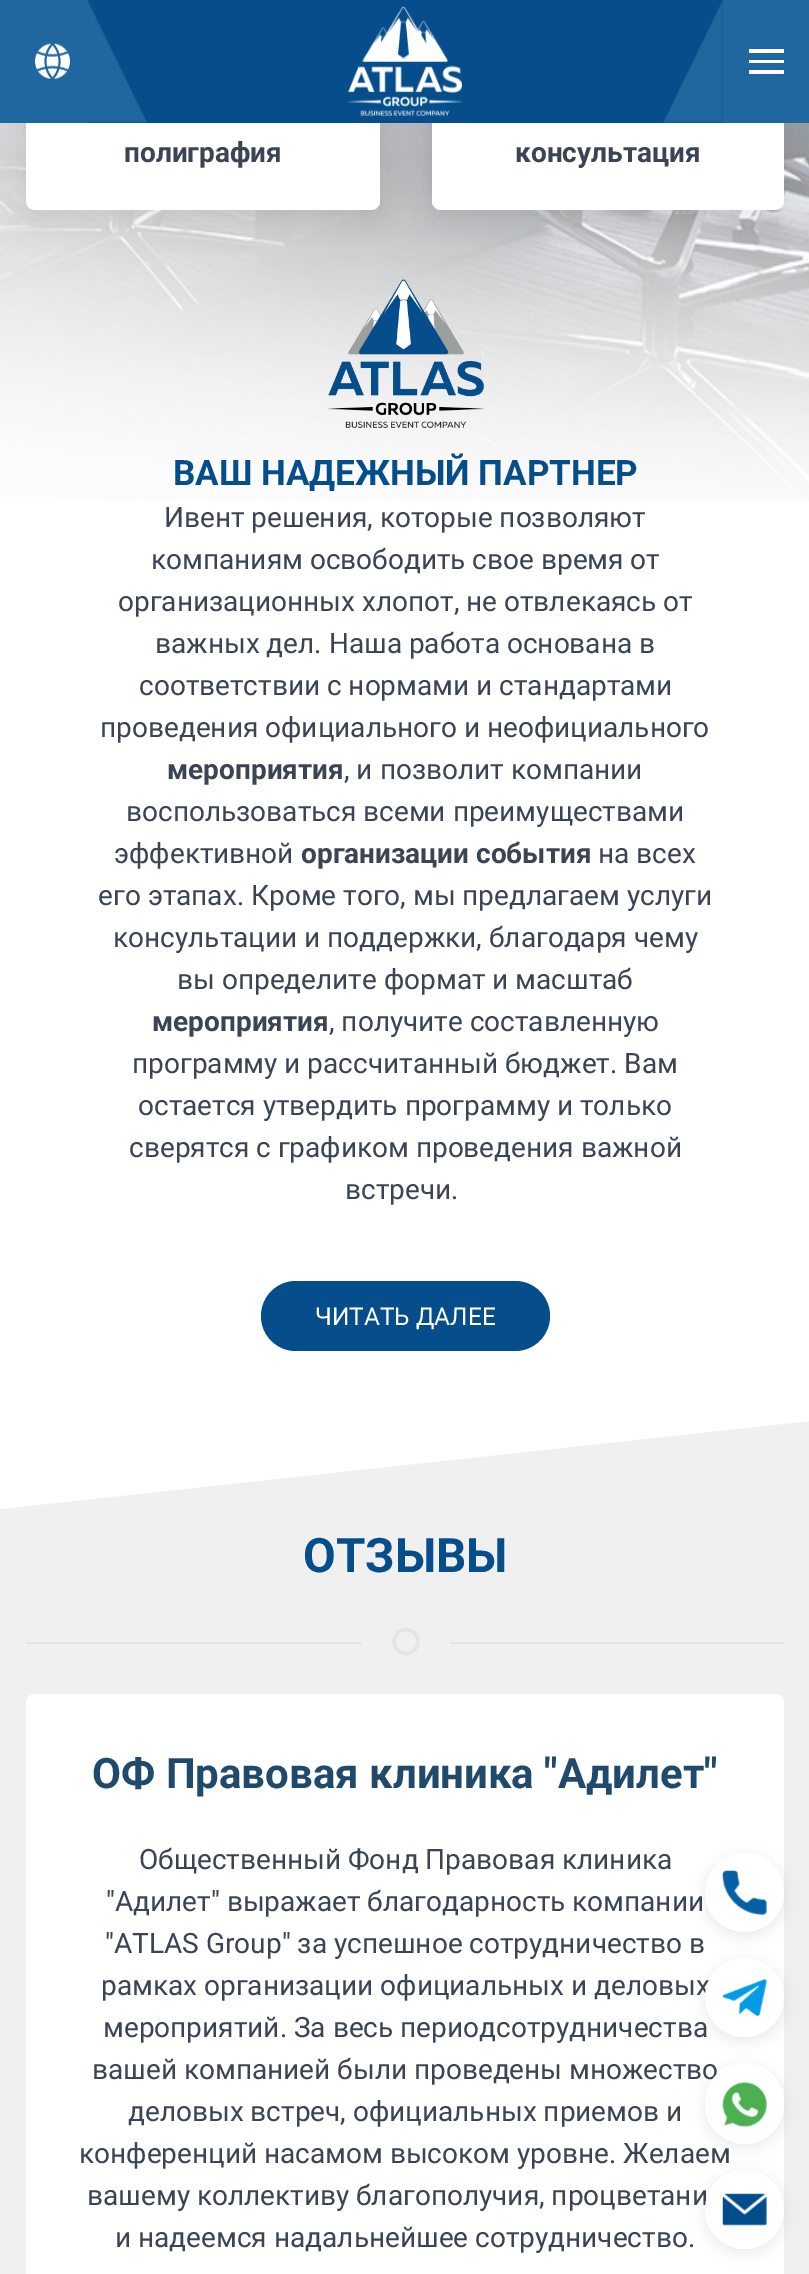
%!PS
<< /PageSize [809 2274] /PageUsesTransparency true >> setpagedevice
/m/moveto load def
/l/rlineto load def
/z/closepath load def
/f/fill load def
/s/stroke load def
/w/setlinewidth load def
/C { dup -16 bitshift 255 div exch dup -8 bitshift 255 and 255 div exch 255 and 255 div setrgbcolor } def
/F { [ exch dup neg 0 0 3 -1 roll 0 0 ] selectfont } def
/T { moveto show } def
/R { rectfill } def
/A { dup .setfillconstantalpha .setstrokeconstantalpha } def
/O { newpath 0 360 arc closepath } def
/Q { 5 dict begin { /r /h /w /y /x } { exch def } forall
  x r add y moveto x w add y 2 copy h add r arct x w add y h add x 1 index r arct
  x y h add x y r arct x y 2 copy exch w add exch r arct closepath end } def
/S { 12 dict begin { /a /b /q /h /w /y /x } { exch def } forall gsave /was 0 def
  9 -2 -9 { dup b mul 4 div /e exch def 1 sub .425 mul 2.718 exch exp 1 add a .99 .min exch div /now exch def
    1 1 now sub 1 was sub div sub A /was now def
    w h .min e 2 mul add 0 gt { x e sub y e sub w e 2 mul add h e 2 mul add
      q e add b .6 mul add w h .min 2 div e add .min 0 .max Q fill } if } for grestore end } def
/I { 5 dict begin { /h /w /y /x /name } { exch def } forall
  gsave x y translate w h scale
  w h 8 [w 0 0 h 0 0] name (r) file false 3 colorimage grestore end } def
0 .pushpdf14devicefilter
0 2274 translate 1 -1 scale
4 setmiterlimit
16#FFFFFF C
0 0 809 2274 R
(5.rgb) 0 123 809 378 I
16#000000 C
26 -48 354 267 9 13 .08 S
16#FFFFFF C
26 -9 354 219 9 Q f
16#000000 C
432 -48 352 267 9 13 .08 S
16#FFFFFF C
432 -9 352 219 9 Q f
16#054E8B C
88 0 635 123 R
16#20669F C
0 0 88 123 R
(1.rgb) 35 43 35 36 I
(2.rgb) 88 1 59 122 I
(3.rgb) 348 6 114 110 I
(4.rgb) 663 0 60 123 I
723 0 86 123 R
16#FFFFFF C
749 49 35 4 R
749 60 35 3 R
749 70 35 4 R
/Roboto-Bold 28 F
16#3A4455 C
(полиграфия) 124 162 T
(консультация) 515 162 T
(6.rgb) 328 279 156 149 I
/Roboto-Bold 35 F
16#054E8B C
(ВАШ НАДЕЖНЫЙ ПАРТНЕР) 173 485 T
/Roboto-Regular 28 F
16#3A4455 C
(Ивент решения, которые позволяют) 164 527 T
(компаниям освободить свое время от) 151 569 T
(организационных хлопот, не отвлекаясь от) 118 611 T
(важных дел. Наша работа основана в) 155 653 T
(соответствии с нормами и стандартами) 139 695 T
(проведения официального и неофициального) 100 737 T
/Roboto-Bold 28 F
(мероприятия) 167 779 T
/Roboto-Regular 28 F
(, и позволит компании) 344 779 T
(воспользоваться всеми преимуществами) 126 821 T
(эффективной) 114 863 T
/Roboto-Bold 28 F
(организации события) 301 863 T
/Roboto-Regular 28 F
(на всех) 598 863 T
(его этапах. Кроме того, мы предлагаем услуги) 98 905 T
(консультации и поддержки, благодаря чему) 113 947 T
(вы определите формат и масштаб) 177 989 T
/Roboto-Bold 28 F
(мероприятия) 152 1031 T
/Roboto-Regular 28 F
(, получите составленную) 329 1031 T
(программу и рассчитанный бюджет. Вам) 132 1073 T
(остается утвердить программу и только) 138 1115 T
(сверятся с графиком проведения важной) 129 1157 T
(встречи.) 345 1199 T
16#054E8B C
261 1281 289 70 35 Q f
/Roboto-Regular 24.5 F
16#FFFFFF C
(ЧИТАТЬ ДАЛЕЕ) 315 1325 T
16#F0F0F0 C
0 1421 809 853 R
16#FFFFFF C
0 1421 m 0 88 l 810 -88 l z f
/Roboto-Bold 47.5 F
16#054E8B C
(ОТЗЫВЫ) 303 1572 T
16#E5E5E5 C
3.5 w
406 1641.5 12 O s
26 1642 336 2 R
450 1642 334 2 R
16#FFFFFF C
26 1694 758 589 9 Q f
/Roboto-Bold 42 F
16#204A6C C
(ОФ Правовая клиника "Адилет") 92 1788 T
/Roboto-Regular 28 F
16#3A4455 C
(Общественный Фонд Правовая клиника) 139 1869 T
("Адилет" выражает благодарность компании) 106 1911 T
("ATLAS Group" за успешное сотрудничество в) 105 1953 T
(рамках организации официальных и деловых) 101 1995 T
(мероприятий. За весь периодсотрудничества) 103 2037 T
(вашей компанией были проведены множество) 92 2079 T
(деловых встреч, официальных приемов и) 128 2121 T
(конференций насамом высоком уровне. Желаем) 79 2163 T
(вашему коллективу благополучия, процветани) 87 2205 T
(и надеемся надальнейшее сотрудничество.) 115 2247 T
16#000000 C
705 1857 79 79 39.5 7 .08 S
16#FFFFFF C
744.5 1892.5 39.5 O f
(7.rgb) 722 1870 45 45 I
16#000000 C
705 1962 79 79 39.5 7 .08 S
16#FFFFFF C
744.5 1997.5 39.5 O f
(8.rgb) 722 1978 45 39 I
16#000000 C
705 2067 79 80 39.5 7 .08 S
16#FFFFFF C
705 2063 79 81 39.5 Q f
(9.rgb) 722 2081 45 46 I
16#000000 C
705 2174 79 78 39 7 .08 S
16#FFFFFF C
744.5 2209.5 39.5 O f
(10.rgb) 722 2193 45 33 I
.poppdf14devicefilter showpage
